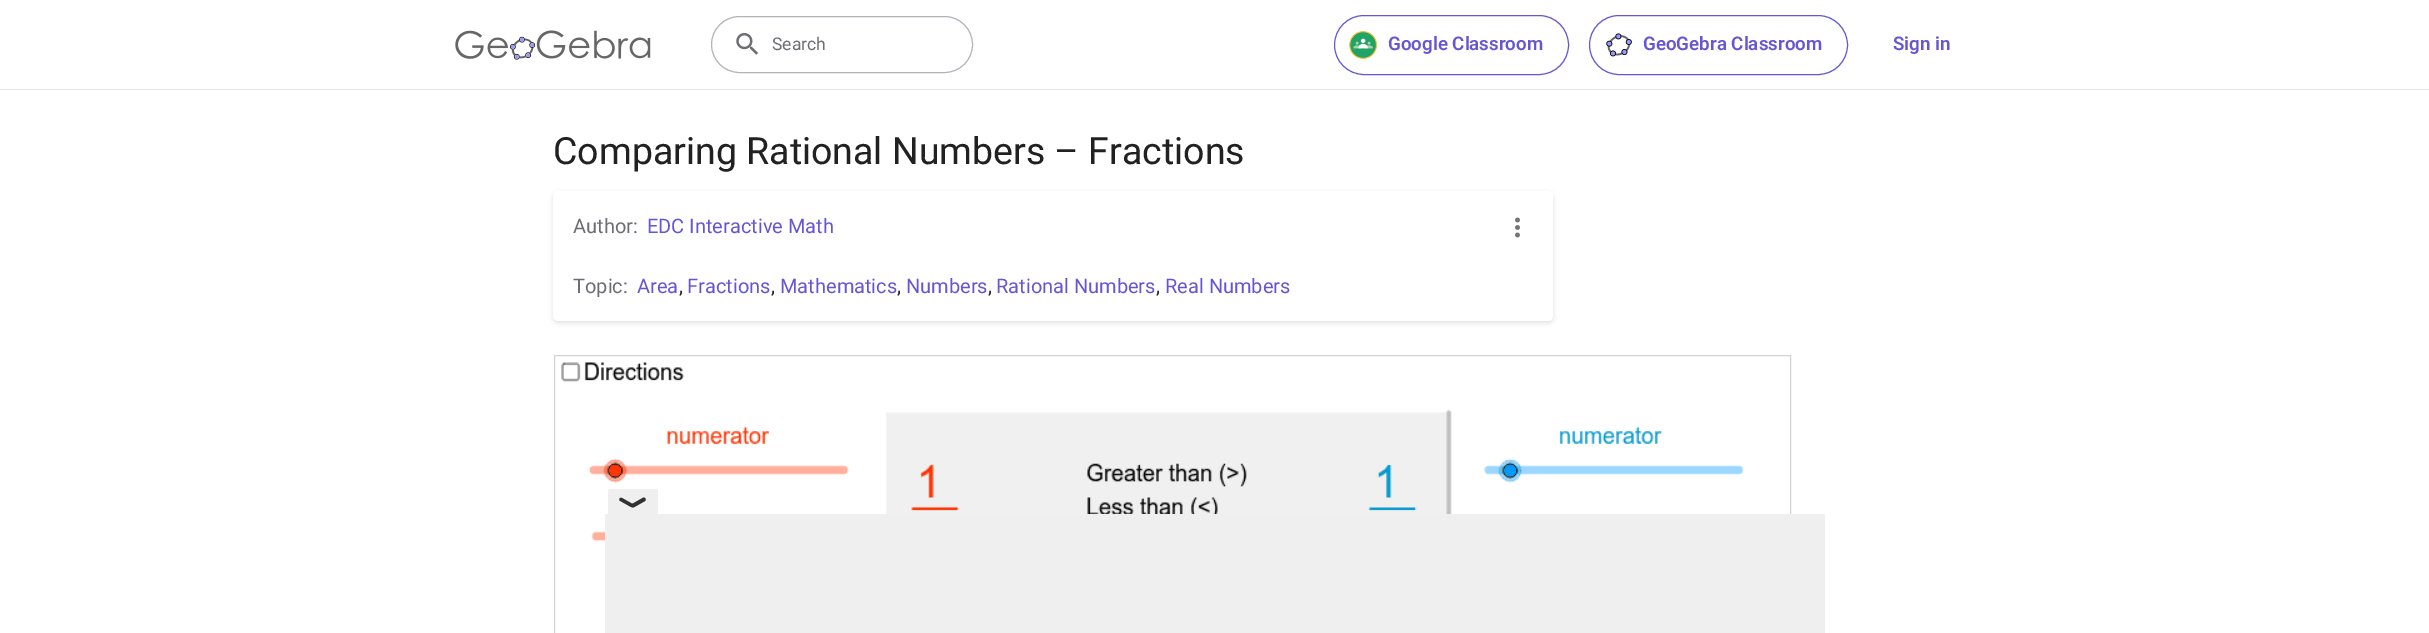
%!PS
<< /PageSize [2429 633] /PageUsesTransparency true >> setpagedevice
/m/moveto load def
/l/rlineto load def
/c/rcurveto load def
/z/closepath load def
/f/fill load def
/s/stroke load def
/C { dup -16 bitshift 255 div exch dup -8 bitshift 255 and 255 div exch 255 and 255 div setrgbcolor } def
/F { [ exch dup neg 0 0 3 -1 roll 0 0 ] selectfont } def
/T { moveto show } def
/R { rectfill } def
/A { dup .setfillconstantalpha .setstrokeconstantalpha } def
/Q { 5 dict begin { /r /h /w /y /x } { exch def } forall
  x r add y moveto x w add y 2 copy h add r arct x w add y h add x 1 index r arct
  x y h add x y r arct x y 2 copy exch w add exch r arct closepath end } def
/S { 12 dict begin { /a /b /q /h /w /y /x } { exch def } forall gsave /was 0 def
  9 -2 -9 { dup b mul 4 div /e exch def 1 sub .425 mul 2.718 exch exp 1 add a .99 .min exch div /now exch def
    1 1 now sub 1 was sub div sub A /was now def
    w h .min e 2 mul add 0 gt { x e sub y e sub w e 2 mul add h e 2 mul add
      q e add b .6 mul add w h .min 2 div e add .min 0 .max Q fill } if } for grestore end } def
/I { 5 dict begin { /h /w /y /x /name } { exch def } forall
  gsave x y translate w h scale
  w h 8 [w 0 0 h 0 0] name (r) file false 3 colorimage grestore end } def
0 .pushpdf14devicefilter
0 633 translate 1 -1 scale
4 setmiterlimit
16#FFFFFF C
0 0 2429 633 R
16#E6E6EB C
0 89 2429 1 R
(1.rgb) 455 30 196 30 I
16#B4B3BA C
711.5 16.5 261 56 28 Q s
(2.rgb) 736 33 22 22 I
/Roboto-Regular 17.5 F
16#6E6D73 C
(Search) 772 50 T
16#6557D2 C
1334.5 15.5 234 59 29.5 Q s
(3.rgb) 1349 31 28 28 I
/Roboto-SemiBold 18.75 F
(Google Classroom) 1388 50 T
1589.5 15.5 258 59 29.5 Q s
(4.rgb) 1606 33 26 24 I
(GeoGebra Classroom) 1643 50 T
(Sign in) 1893 50 T
/Roboto-Regular 37.5 F
16#212121 C
(Comparing Rational Numbers – Fractions) 553 164 T
16#1C1C1F C
553 193 1000 130 5 2.5 .14 S
16#FFFFFF C
553 191 1000 130 5 Q f
/Roboto-Regular 20 F
16#6E6D73 C
(Author:) 573 233 T
16#6557D2 C
(EDC Interactive Math) 647 233 T
16#6E6D73 C
(Topic:) 573 293 T
16#6557D2 C
(Area) 637 293 T
16#212121 C
(,) 679 293 T
16#6557D2 C
(Fractions) 687 293 T
16#212121 C
(,) 771 293 T
16#6557D2 C
(Mathematics) 780 293 T
16#212121 C
(,) 897 293 T
16#6557D2 C
(Numbers) 906 293 T
16#212121 C
(,) 988 293 T
16#6557D2 C
(Rational Numbers) 996 293 T
16#212121 C
(,) 1156 293 T
16#6557D2 C
(Real Numbers) 1165 293 T
(5.rgb) 1515 217 5 21 I
(6.rgb) 561 362 1183 266 I
16#D3D3D3 C
554.5 355.5 1236 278 rectstroke
16#EFEFEF C
610.5 489 m 45 0 l 1.5 0 2.5 1 2.5 2.5 c 0 22.5 l -50 0 l 0 -22.5 l 0 -1.5 1 -2.5 2.5 -2.5 c z f
16#313131 C
622 498 m 11.5 6.5 l 1 1.5 -1 3.5 -2.5 2.5 c -11.5 -6.5 l -1 -1.5 1 -3.5 2.5 -2.5 c z f
632 504 m 11.5 -6.5 l 2 0 3 2.5 1.5 3.5 c -11.5 6.5 l -2 0 -3 -2.5 -1.5 -3.5 c z f
16#EFEFEF C
605 514 1220 119 R
.poppdf14devicefilter showpage
